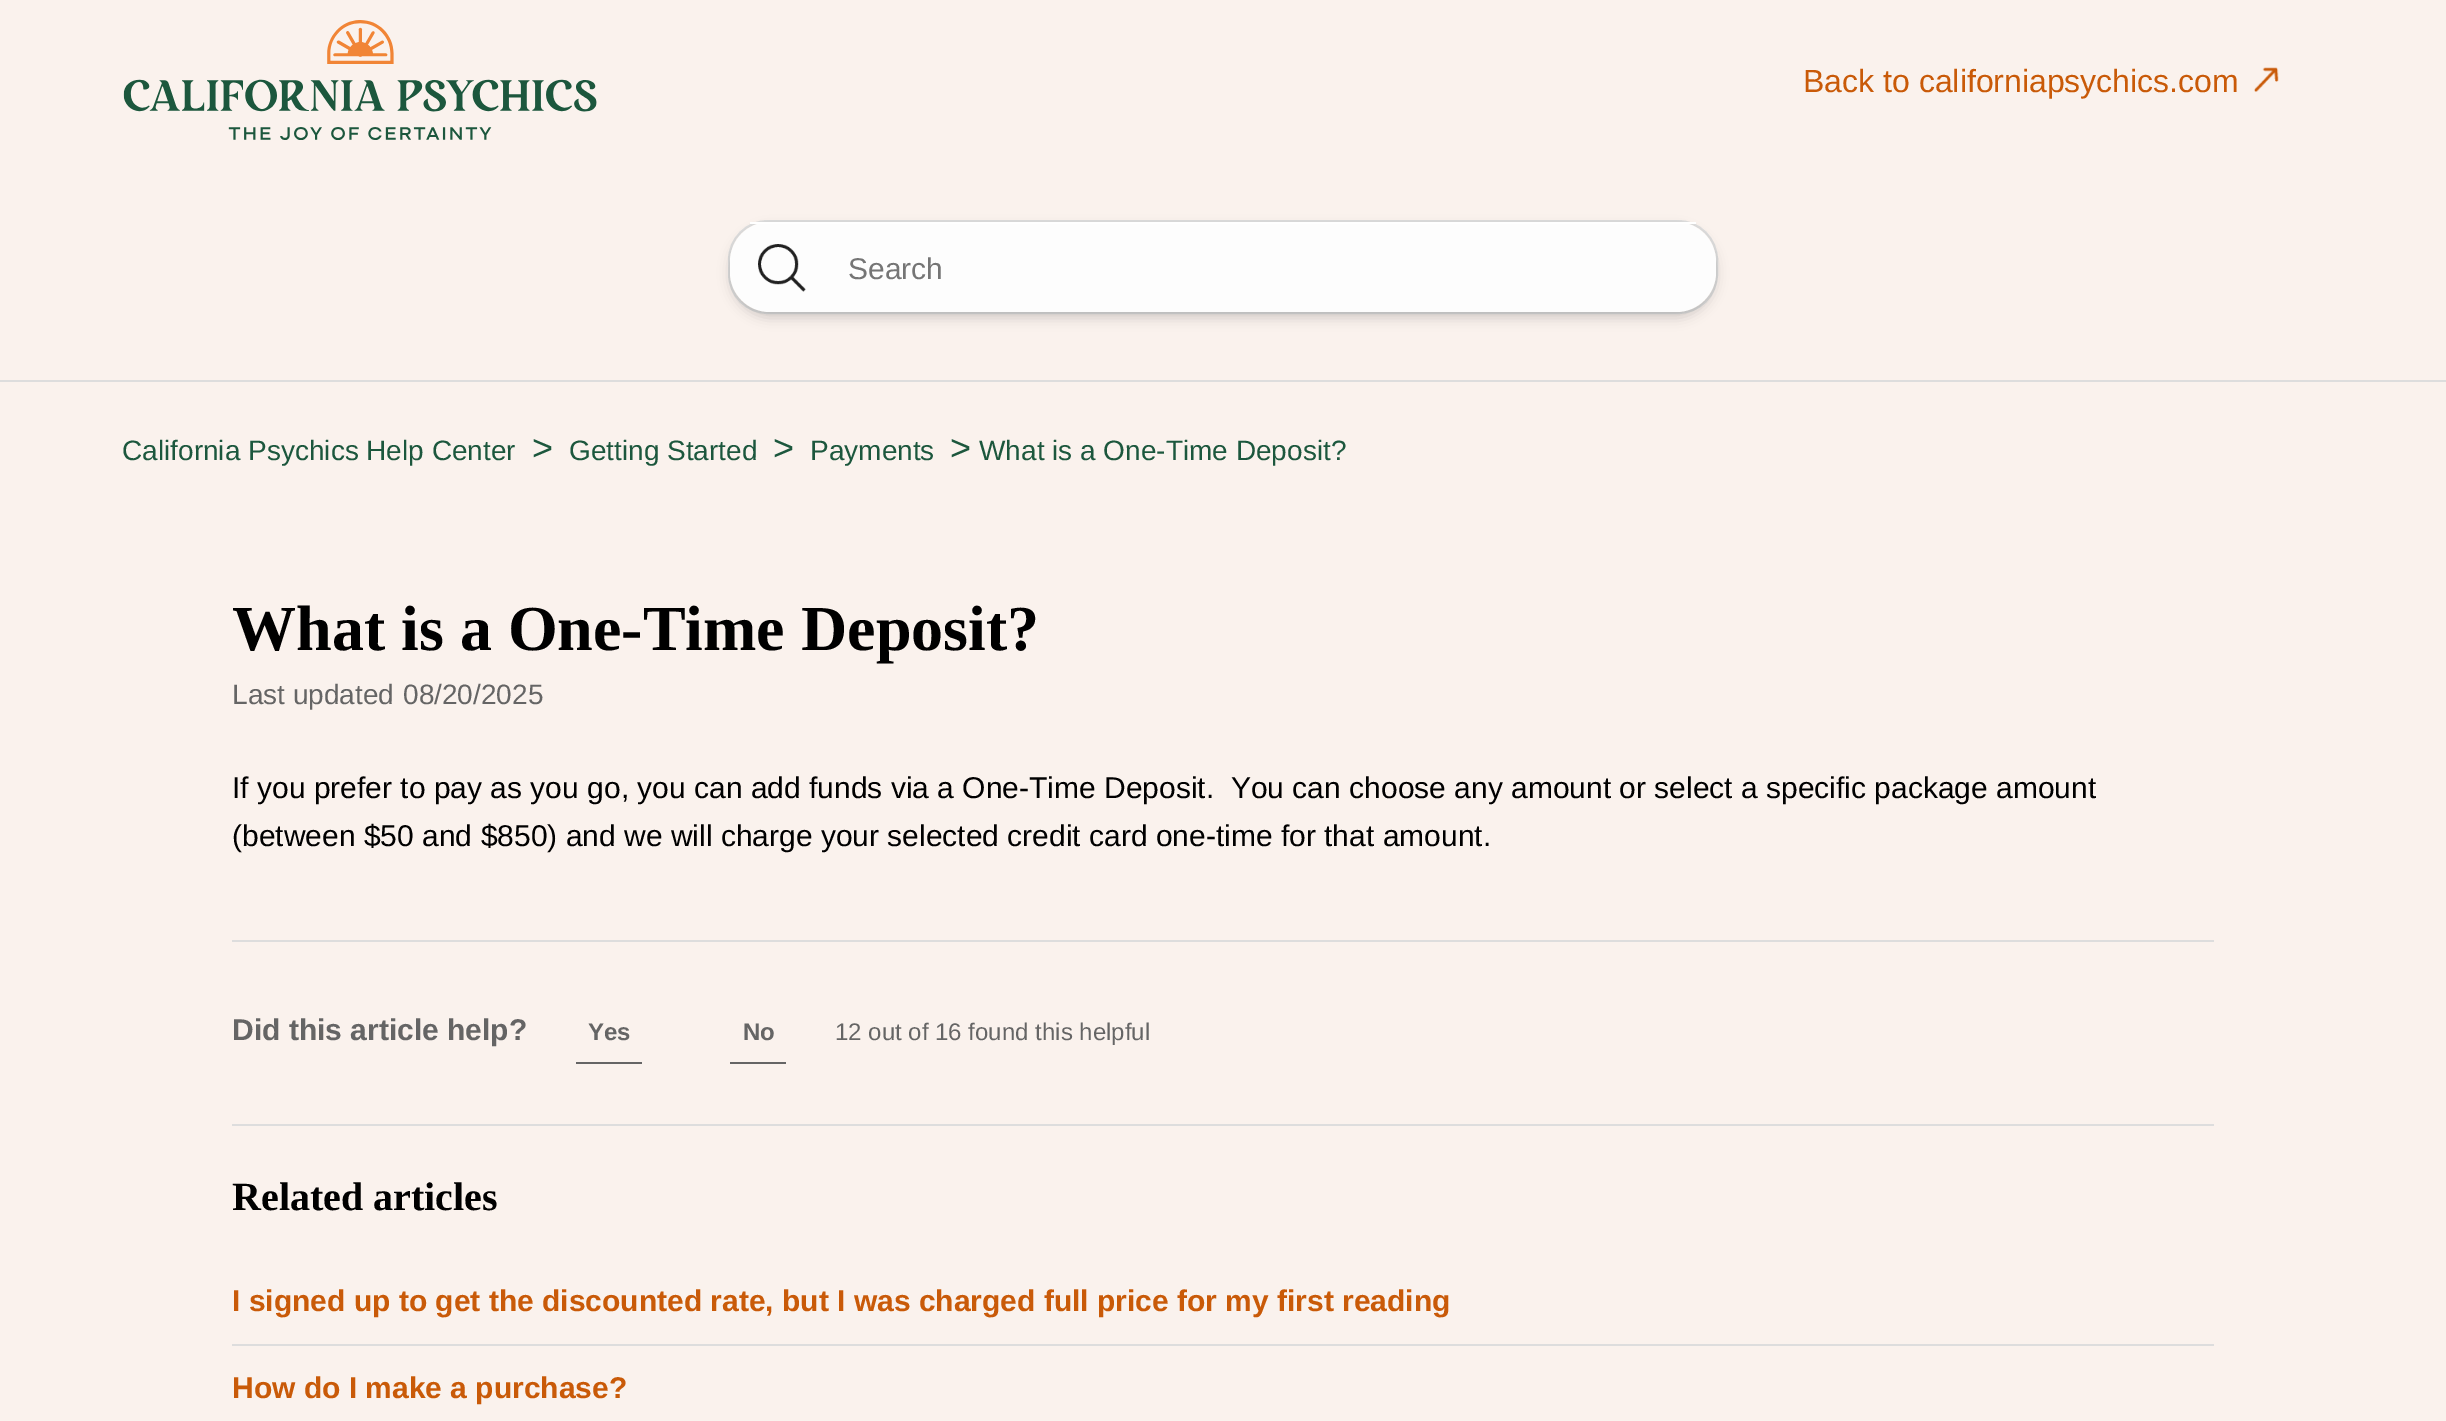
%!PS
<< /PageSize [2446 1421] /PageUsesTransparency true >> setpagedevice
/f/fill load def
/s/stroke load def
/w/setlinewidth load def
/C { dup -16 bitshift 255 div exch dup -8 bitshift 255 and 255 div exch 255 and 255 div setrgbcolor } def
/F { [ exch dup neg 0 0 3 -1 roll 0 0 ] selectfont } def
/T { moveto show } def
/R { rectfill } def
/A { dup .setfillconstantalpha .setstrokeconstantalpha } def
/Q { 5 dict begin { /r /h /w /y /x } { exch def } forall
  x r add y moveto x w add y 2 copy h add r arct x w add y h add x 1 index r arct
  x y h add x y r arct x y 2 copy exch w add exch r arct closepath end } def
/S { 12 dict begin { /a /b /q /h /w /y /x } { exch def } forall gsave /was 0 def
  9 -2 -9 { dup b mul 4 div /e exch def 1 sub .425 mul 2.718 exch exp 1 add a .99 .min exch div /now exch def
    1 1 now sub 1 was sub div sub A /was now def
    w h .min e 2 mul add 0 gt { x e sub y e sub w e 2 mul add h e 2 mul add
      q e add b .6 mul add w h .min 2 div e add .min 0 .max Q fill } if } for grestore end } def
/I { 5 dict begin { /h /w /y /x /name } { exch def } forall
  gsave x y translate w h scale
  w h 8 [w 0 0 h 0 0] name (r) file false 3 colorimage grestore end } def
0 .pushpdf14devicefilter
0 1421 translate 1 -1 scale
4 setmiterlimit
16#FAF2ED C
0 0 2446 1421 R
(1.rgb) 123 20 474 120 I
/LiberationSans-Regular 32 F
16#C95A08 C
(Back to californiapsychics.com) 1803 92 T
(2.rgb) 2254 67 25 25 I
16#DDDDDD C
2 w
729 221 988 92 39 Q s
16#000000 C
730 228 986 90 40 6 .16 S
16#FDFDFD C
730 222 986 90 40 Q f
(3.rgb) 758 244 48 48 I
16#FFFFFF C
750 222 946 2 R
/LiberationSans-Regular 30 F
16#757575 C
(Search) 848 279 T
16#DDDDDD C
0 380 2446 2 R
/LiberationSans-Regular 28 F
16#1C573D C
(California Psychics Help Center) 122 460 T
/LiberationSans-Regular 36 F
(>) 532 460 T
/LiberationSans-Regular 28 F
(Getting Started) 569 460 T
/LiberationSans-Regular 36 F
(>) 773 460 T
/LiberationSans-Regular 28 F
(Payments) 810 460 T
/LiberationSans-Regular 36 F
(>) 950 460 T
/LiberationSans-Regular 28 F
(What is a One-Time Deposit?) 979 460 T
/LiberationSerif-Bold 64 F
16#000000 C
(What is a One-Time Deposit?) 232 650 T
/LiberationSans-Regular 28 F
16#656565 C
(Last updated) 232 704 T
(08/20/2025) 403 704 T
/LiberationSans-Regular 30 F
16#000000 C
(If you prefer to pay as you go, you can add funds via a One-Time Deposit.  You can choose any amount or select a specific package amount) 232 798 T
(\(between $50 and $850\) and we will charge your selected credit card one-time for that amount.) 232 846 T
16#DDDDDD C
232 940 1982 2 R
/LiberationSans-Bold 30 F
16#656565 C
(Did this article help?) 232 1040 T
576 1062 66 2 R
/LiberationSans-Bold 24 F
(Yes) 588 1040 T
730 1062 56 2 R
(No) 743 1040 T
/LiberationSans-Regular 24 F
(12 out of 16 found this helpful) 835 1040 T
16#DDDDDD C
232 1124 1982 2 R
/LiberationSerif-Bold 40 F
16#000000 C
(Related articles) 232 1210 T
16#DDDDDD C
232 1344 1982 2 R
/LiberationSans-Bold 30 F
16#C95A08 C
(I signed up to get the discounted rate, but I was charged full price for my first reading) 232 1311 T
(How do I make a purchase?) 232 1398 T
.poppdf14devicefilter showpage
